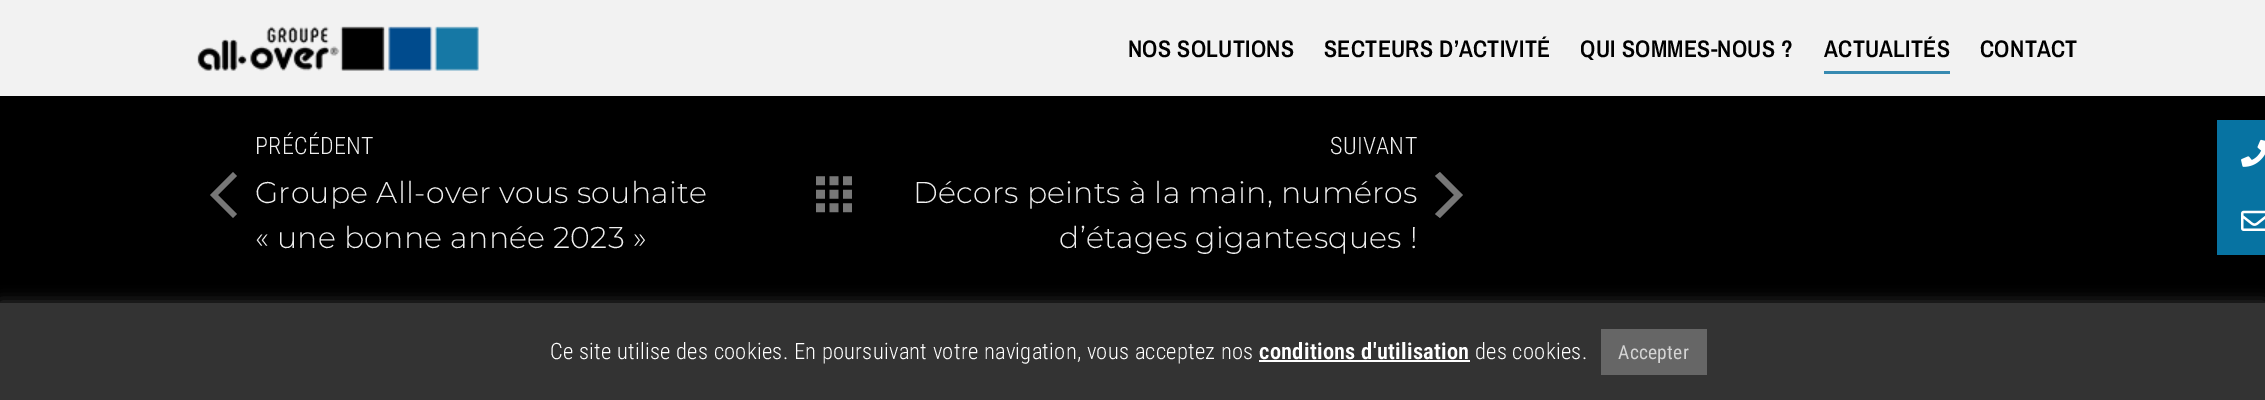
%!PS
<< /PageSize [2265 400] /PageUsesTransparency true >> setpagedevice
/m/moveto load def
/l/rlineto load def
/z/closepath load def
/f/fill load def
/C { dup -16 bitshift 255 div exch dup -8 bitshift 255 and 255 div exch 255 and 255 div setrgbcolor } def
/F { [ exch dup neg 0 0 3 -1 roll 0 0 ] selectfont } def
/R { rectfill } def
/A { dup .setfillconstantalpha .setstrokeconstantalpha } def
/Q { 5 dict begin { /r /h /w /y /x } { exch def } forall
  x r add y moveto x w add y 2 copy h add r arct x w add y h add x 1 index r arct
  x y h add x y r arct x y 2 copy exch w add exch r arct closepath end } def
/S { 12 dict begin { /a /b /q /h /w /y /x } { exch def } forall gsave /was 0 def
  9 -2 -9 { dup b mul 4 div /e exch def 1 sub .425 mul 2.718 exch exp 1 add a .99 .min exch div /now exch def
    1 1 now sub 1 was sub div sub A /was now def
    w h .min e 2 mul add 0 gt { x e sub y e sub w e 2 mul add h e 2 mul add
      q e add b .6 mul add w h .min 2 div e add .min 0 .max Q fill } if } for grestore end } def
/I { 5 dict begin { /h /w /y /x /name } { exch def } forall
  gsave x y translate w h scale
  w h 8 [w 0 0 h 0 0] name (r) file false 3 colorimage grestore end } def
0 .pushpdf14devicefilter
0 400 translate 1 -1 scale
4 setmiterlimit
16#000000 C
0 0 2265 400 R
16#F2F2F2 C
0 0 2265 96 R
(1.rgb) 197 26 282 45 I
/ArchivoNarrow-SemiBold 24 F
16#000000 C
1128 57 m .27 0 (NOS SOLUTIONS) ashow
1324 57 m .27 0 (SECTEURS D’ACTIVITÉ) ashow
1580 57 m .27 0 (QUI SOMMES-NOUS ?) ashow
1824 57 m .27 0 (ACTUALITÉS) ashow
16#378AB1 C
1824 71 126 3 R
16#000000 C
1980 57 m .27 0 (CONTACT) ashow
/RobotoCondensed-Light 24 F
16#EEEEEE C
255 154 m .27 0 (PRÉCÉDENT) ashow
16#777777 C
218 195 m 19 -19 l -4 -4 l -23 23 l 23 23 l 4 -4 l z f
/Montserrat-Light 30 F
16#EEEEEE C
255 203 m .27 0 (Groupe All-over vous souhaite) ashow
255 248 m .27 0 (« une bonne année 2023 ») ashow
(2.rgb) 816 176 36 37 I
/RobotoCondensed-Light 24 F
1330 154 m .27 0 (SUIVANT) ashow
/Montserrat-Light 30 F
913 203 m .27 0 (Décors peints à la main, numéros) ashow
1059 248 m .27 0 (d’étages gigantesques !) ashow
16#777777 C
1454 195 m -19 -19 l 5 -4 l 23 23 l -23 23 l -5 -4 l z f
16#0773A2 C
2217 120 48 135 R
(3.rgb) 2241 139 24 28 I
(4.rgb) 2241 210 24 21 I
16#ACABAB C
0 302 2265 97 0 7.5 .3 S
16#333333 C
0 303 2265 97 R
/RobotoCondensed-Light 22.5 F
16#FFFFFF C
550 359 m .27 0 (Ce site utilise des cookies. En poursuivant votre navigation, vous acceptez nos) ashow
/RobotoCondensed-SemiBold 22.5 F
1259 359 m .27 0 (conditions d'utilisation) ashow
1259 360 211 2 R
/RobotoCondensed-Light 22.5 F
1475 359 m .27 0 (des cookies.) ashow
16#666666 C
1601 329 106 46 R
/RobotoCondensed-Regular 19.5 F
16#D4D4D4 C
1618 359 m .27 0 (Accepter) ashow
.poppdf14devicefilter showpage
